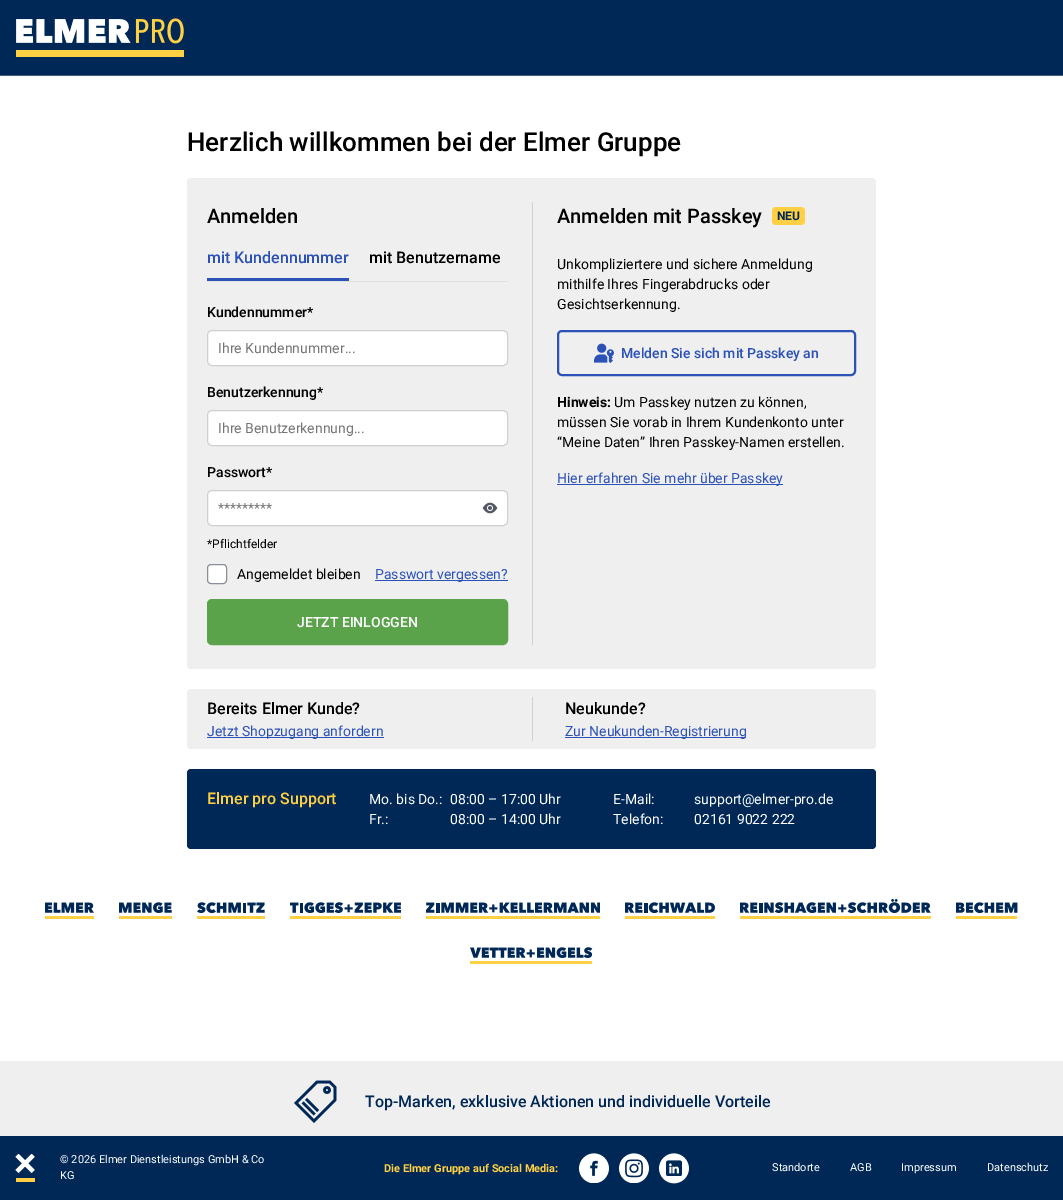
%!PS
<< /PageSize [1063 1200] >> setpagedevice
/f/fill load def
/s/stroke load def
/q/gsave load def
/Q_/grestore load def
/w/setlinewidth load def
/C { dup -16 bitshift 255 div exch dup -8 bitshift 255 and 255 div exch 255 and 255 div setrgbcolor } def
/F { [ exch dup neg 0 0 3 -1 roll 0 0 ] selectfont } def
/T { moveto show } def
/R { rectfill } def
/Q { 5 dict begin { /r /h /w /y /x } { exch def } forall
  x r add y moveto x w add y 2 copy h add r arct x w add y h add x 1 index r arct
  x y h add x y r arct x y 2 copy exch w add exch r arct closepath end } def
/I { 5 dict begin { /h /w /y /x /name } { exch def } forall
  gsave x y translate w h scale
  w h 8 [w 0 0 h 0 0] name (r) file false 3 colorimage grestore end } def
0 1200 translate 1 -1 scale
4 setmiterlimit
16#FFFFFF C
0 0 1063 1200 R
16#002856 C
0 0 1063 75 R
16#455E81 C
0 75 1063 1 R
(1.rgb) 16 18 168 39 I
/Roboto-Medium 26 F
16#000000 C
(Herzlich willkommen bei der Elmer Gruppe) 187 151 T
16#F0EFEF C
187 178 689 491 4 Q f
/Roboto-Medium 20 F
16#000000 C
(Anmelden) 207 223 T
16#DFE0E0 C
207 281 301 1 R
16#2C52B7 C
207 278 142 3 R
/Roboto-Medium 16 F
(mit Kundennummer) 207 263 T
16#000000 C
(mit Benutzername) 369 263 T
/Roboto-Medium 14 F
(Kundennummer*) 207 317 T
16#FFFFFF C
207.5 330.5 300 35 4.5 Q q f Q_
16#CED1D2 C
s
/Roboto-Regular 14 F
16#757575 C
(Ihre Kundennummer...) 218 353 T
/Roboto-Medium 14 F
16#000000 C
(Benutzerkennung*) 207 397 T
16#FFFFFF C
207.5 410.5 300 35 4.5 Q q f Q_
16#CED1D2 C
s
/Roboto-Regular 14 F
16#757575 C
(Ihre Benutzerkennung...) 218 433 T
/Roboto-Medium 14 F
16#000000 C
(Passwort*) 207 477 T
16#FFFFFF C
207.5 490.5 300 35 4.5 Q q f Q_
16#CED1D2 C
s
/Roboto-Regular 14 F
16#757575 C
(*********) 218 513 T
(2.rgb) 482 502 16 12 I
/Roboto-Regular 12 F
16#000000 C
(*Pflichtfelder) 207 548 T
16#FFFFFF C
207.5 564.5 19 19 3.5 Q q f Q_
16#8A8F97 C
s
/Roboto-Regular 14 F
16#000000 C
(Angemeldet bleiben) 237 579 T
16#2C52B7 C
375 580 133 1 R
(Passwort vergessen?) 375 579 T
16#5AA34A C
208 600 299 44 4 Q q f Q_
2 w
s
/Roboto-Medium 14 F
16#FFFFFF C
(JETZT EINLOGGEN) 297 627 T
16#CED1D2 C
532 202 1 443 R
/Roboto-Medium 20 F
16#000000 C
(Anmelden mit Passkey) 557 223 T
16#FFD044 C
772 207 33 18 4 Q f
/Roboto-Bold 12 F
16#002856 C
(NEU) 777 220 T
/Roboto-Regular 14 F
16#000000 C
(Unkompliziertere und sichere Anmeldung) 557 269 T
(mithilfe Ihres Fingerabdrucks oder) 557 289 T
(Gesichtserkennung.) 557 309 T
16#2C52B7 C
558 331 297 44 4 Q s
(3.rgb) 594 343 20 20 I
/Roboto-Medium 14 F
(Melden Sie sich mit Passkey an) 621 358 T
/Roboto-Bold 14 F
16#000000 C
(Hinweis:) 557 407 T
/Roboto-Regular 14 F
(Um Passkey nutzen zu können,) 614 407 T
(müssen Sie vorab in Ihrem Kundenkonto unter) 557 427 T
(“Meine Daten” Ihren Passkey-Namen erstellen.) 557 447 T
16#2C52B7 C
557 484 226 1 R
(Hier erfahren Sie mehr über Passkey) 557 483 T
16#F0EFEF C
187 689 689 60 4 Q f
/Roboto-Medium 16 F
16#000000 C
(Bereits Elmer Kunde?) 207 714 T
16#2C52B7 C
207 737 177 1 R
/Roboto-Regular 14 F
(Jetzt Shopzugang anfordern) 207 736 T
16#CED1D2 C
532 697 1 44 R
/Roboto-Medium 16 F
16#000000 C
(Neukunde?) 565 714 T
16#2C52B7 C
565 737 181 1 R
/Roboto-Regular 14 F
(Zur Neukunden-Registrierung) 565 736 T
16#002856 C
187 769 689 80 4 Q f
/Roboto-Medium 16 F
16#FFD044 C
(Elmer pro Support) 207 804 T
/Roboto-Regular 14 F
16#FFFFFF C
(Mo. bis Do.:) 369 804 T
(Fr.:) 369 824 T
(08:00 – 17:00 Uhr) 450 804 T
(08:00 – 14:00 Uhr) 450 824 T
(E-Mail:) 613 804 T
(Telefon:) 613 824 T
(support@elmer-pro.de) 694 804 T
(02161 9022 222) 694 824 T
(4.rgb) 45 902 49 17 I
(5.rgb) 119 902 53 17 I
(6.rgb) 197 902 68 17 I
(7.rgb) 290 902 111 17 I
(8.rgb) 426 902 174 17 I
(9.rgb) 625 902 90 17 I
(10.rgb) 740 899 191 20 I
(11.rgb) 956 902 62 17 I
(12.rgb) 470 947 123 17 I
16#002856 C
0 1136 1063 64 R
16#F0EFEF C
0 1061 1063 75 R
(13.rgb) 294 1080 43 43 I
/Roboto-Medium 16 F
16#002856 C
(Top-Marken, exklusive Aktionen und individuelle Vorteile) 365 1107 T
(14.rgb) 15 1154 20 28 I
/Roboto-Regular 11 F
16#FFFFFF C
(© 2026 Elmer Dienstleistungs GmbH & Co) 60 1163 T
(KG) 60 1179 T
/Roboto-Bold 11 F
16#FFD044 C
(Die Elmer Gruppe auf Social Media:) 384 1172 T
(15.rgb) 579 1153 30 30 I
(16.rgb) 619 1153 30 30 I
(17.rgb) 659 1153 30 31 I
/Roboto-Regular 11 F
16#FFFFFF C
(Standorte) 772 1171 T
(AGB) 850 1171 T
(Impressum) 901 1171 T
(Datenschutz) 987 1171 T
showpage
